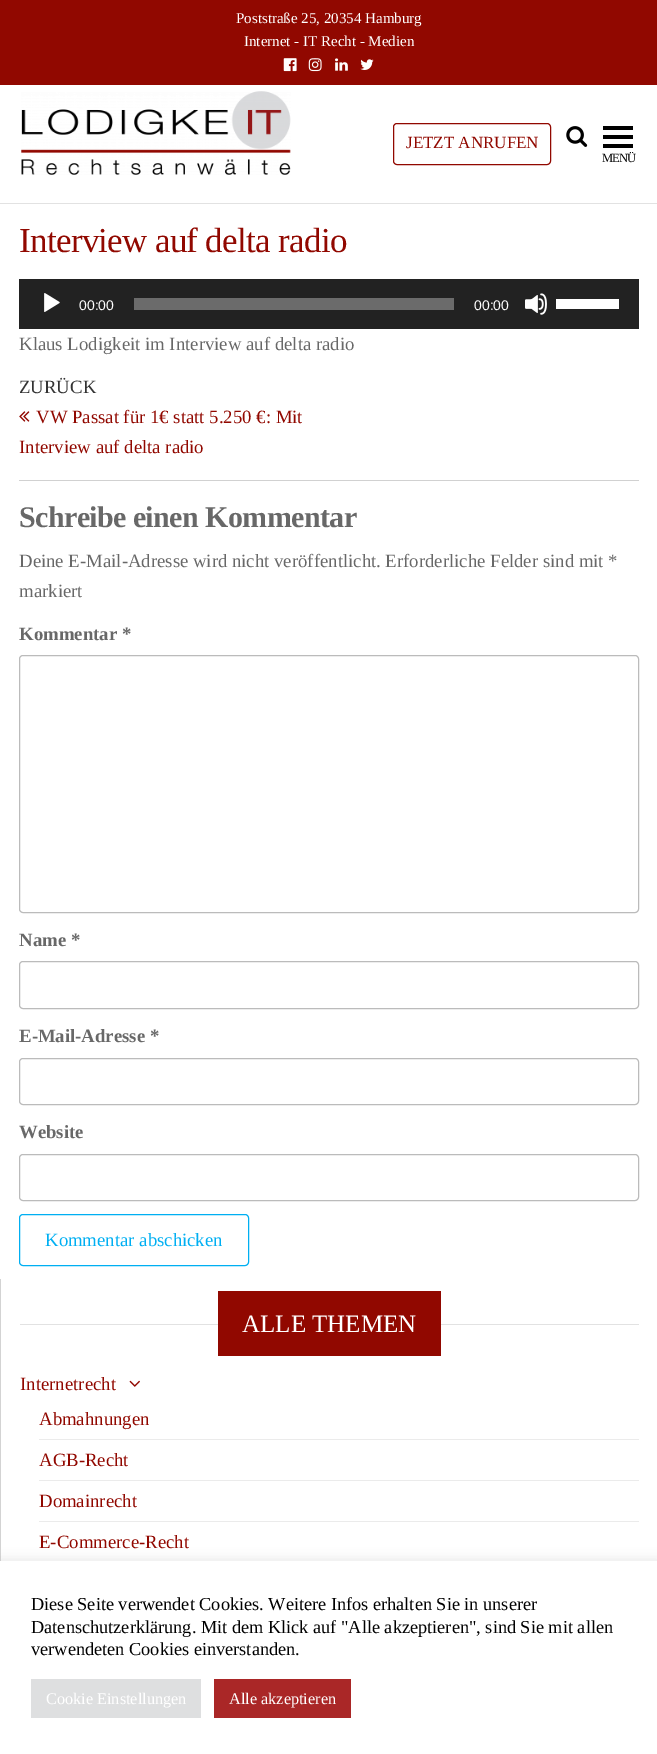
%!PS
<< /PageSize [657 1754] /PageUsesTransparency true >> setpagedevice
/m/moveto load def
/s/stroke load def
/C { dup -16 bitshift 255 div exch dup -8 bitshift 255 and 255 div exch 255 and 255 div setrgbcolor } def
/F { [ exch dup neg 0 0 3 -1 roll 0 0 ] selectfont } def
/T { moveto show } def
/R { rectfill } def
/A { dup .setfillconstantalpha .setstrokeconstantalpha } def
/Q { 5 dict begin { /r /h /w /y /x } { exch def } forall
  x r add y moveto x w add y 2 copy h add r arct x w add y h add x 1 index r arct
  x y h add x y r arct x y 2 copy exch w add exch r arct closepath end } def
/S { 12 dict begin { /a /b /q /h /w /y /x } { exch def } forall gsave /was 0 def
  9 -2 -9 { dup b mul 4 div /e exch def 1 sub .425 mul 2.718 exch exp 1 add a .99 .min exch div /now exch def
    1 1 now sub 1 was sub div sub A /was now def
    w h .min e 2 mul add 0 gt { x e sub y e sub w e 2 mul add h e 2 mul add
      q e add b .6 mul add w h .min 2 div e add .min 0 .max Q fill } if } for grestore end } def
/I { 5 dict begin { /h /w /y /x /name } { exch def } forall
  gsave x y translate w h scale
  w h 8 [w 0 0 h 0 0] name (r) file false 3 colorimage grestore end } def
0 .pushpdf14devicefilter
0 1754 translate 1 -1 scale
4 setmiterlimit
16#FFFFFF C
0 0 657 1754 R
16#910800 C
0 0 657 85 R
/LiberationSerif-Regular 15 F
16#FFFFFF C
(Poststraße 25, 20354 Hamburg) 236 23 T
(Internet - IT Recht - Medien) 244 46 T
(1.rgb) 283 58 14 14 I
(2.rgb) 308 58 14 14 I
(3.rgb) 335 58 13 13 I
(4.rgb) 360 59 14 11 I
16#E2E2E2 C
0 203 657 1 R
(5.rgb) 21 91 270 84 I
16#910800 C
393.5 123.5 157 41 3.5 Q s
/LiberationSerif-Regular 17 F
(JETZT ANRUFEN) 406 148 T
(6.rgb) 566 126 22 21 I
16#000000 C
603 126 30 4 R
603 135 30 4 R
603 144 30 4 R
/LiberationSerif-Regular 12.5 F
602 162 m -1 0 (MENÜ) ashow
/LiberationSerif-Regular 35 F
16#910800 C
19 252 m -.7 0 (Interview auf delta radio) ashow
16#222222 C
19 279 620 50 R
(7.rgb) 44 293 16 19 I
/LiberationSans-Regular 14 F
16#FFFFFF C
(00:00) 79 310 T
16#6B6B6B C
134 298 320 12 R
16#FFFFFF C
(00:00) 474 310 T
(8.rgb) 525 293 22 22 I
556 299 63 10 R
/LiberationSerif-Regular 18.75 F
16#686868 C
(Klaus Lodigkeit im Interview auf delta radio) 19 350 T
16#D1D1D1 C
19 480 620 1 R
16#333333 C
(ZURÜCK) 19 393 T
(9.rgb) 19 411 11 11 I
16#910800 C
(VW Passat für 1€ statt 5.250 €: Mit) 36 423 T
(Interview auf delta radio) 19 453 T
/LiberationSerif-Bold 30 F
16#686868 C
19 527 m -.6 0 (Schreibe einen Kommentar) ashow
/LiberationSerif-Regular 18.75 F
(Deine E-Mail-Adresse wird nicht veröffentlicht. Erforderliche Felder sind mit *) 19 567 T
(markiert) 19 597 T
/LiberationSerif-Bold 18.75 F
(Kommentar *) 19 640 T
16#BBBBBB C
19.5 655.5 619 257 3.5 Q s
16#686868 C
(Name *) 19 946 T
16#BBBBBB C
19.5 961.5 619 47 3.5 Q s
16#686868 C
(E-Mail-Adresse *) 19 1042 T
16#BBBBBB C
19.5 1058.5 619 46 3.5 Q s
16#686868 C
(Website) 19 1138 T
16#BBBBBB C
19.5 1154.5 619 46 3.5 Q s
16#00AFF2 C
19.5 1214.5 229 51 3.5 Q s
/LiberationSerif-Regular 18.75 F
(Kommentar abschicken) 45 1246 T
16#D3D3D3 C
0 1279 1 282 R
16#E2E2E2 C
20 1324 619 1 R
16#910800 C
218 1291 223 65 R
/LiberationSerif-Regular 25 F
16#FFFFFF C
(ALLE THEMEN) 242 1332 T
/LiberationSerif-Regular 18.75 F
16#910800 C
(Internetrecht) 20 1390 T
(10.rgb) 129 1380 11 7 I
16#EBEBEB C
39 1439 600 1 R
16#910800 C
(Abmahnungen) 39 1425 T
16#EBEBEB C
39 1480 600 1 R
16#910800 C
(AGB-Recht) 39 1466 T
16#EBEBEB C
39 1521 600 1 R
16#910800 C
(Domainrecht) 39 1507 T
(E-Commerce-Recht) 39 1548 T
16#ACABAB C
0 1560 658 194 0 6 .3 S
16#FFFFFF C
0 1561 657 193 R
/LiberationSerif-Regular 18.3 F
16#000000 C
(Diese Seite verwendet Cookies. Weitere Infos erhalten Sie in unserer) 31 1610 T
(Datenschutzerklärung. Mit dem Klick auf "Alle akzeptieren", sind Sie mit allen) 31 1633 T
(verwendeten Cookies einverstanden.) 31 1655 T
16#DEDFE0 C
31 1679 170 39 R
/LiberationSerif-Regular 16.25 F
16#FFFFFF C
(Cookie Einstellungen) 46 1704 T
16#AA2727 C
214 1679 137 39 R
16#FFFFFF C
(Alle akzeptieren) 229 1704 T
.poppdf14devicefilter showpage
